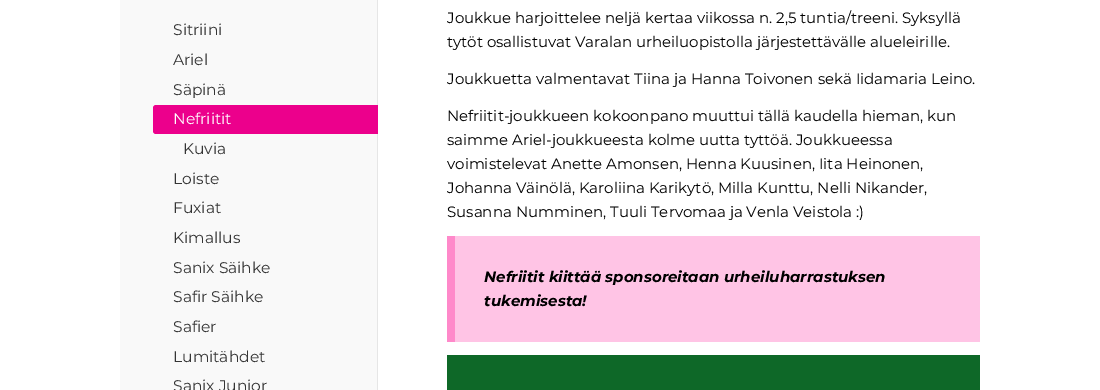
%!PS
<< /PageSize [1100 390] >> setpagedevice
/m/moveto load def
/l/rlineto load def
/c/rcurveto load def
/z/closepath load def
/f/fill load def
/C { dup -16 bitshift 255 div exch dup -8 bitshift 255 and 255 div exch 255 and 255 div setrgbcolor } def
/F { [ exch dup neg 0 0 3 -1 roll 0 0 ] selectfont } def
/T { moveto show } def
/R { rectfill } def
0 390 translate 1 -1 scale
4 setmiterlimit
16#FFFFFF C
0 0 1100 390 R
16#F9F9F9 C
120 0 257 390 R
16#E6E6E6 C
377 0 1 390 R
/Montserrat-Thin 15.5 F
16#353535 C
(Sitriini) 173 35 T
(Ariel) 173 65 T
(Säpinä) 173 95 T
16#EC008C C
156 105 m 222 0 l 0 29 l -222 0 l -1.5 0 -3 -1.5 -3 -3 c 0 -23 l 0 -1.5 1.5 -3 3 -3 c z f
16#FFFFFF C
(Nefriitit) 173 124 T
16#353535 C
(Kuvia) 183 154 T
(Loiste) 173 184 T
(Fuxiat) 173 213 T
(Kimallus) 173 243 T
(Sanix Säihke) 173 273 T
(Safir Säihke) 173 302 T
(Safier) 173 332 T
(Lumitähdet) 173 362 T
(Sanix Junior) 173 391 T
/Montserrat-Thin 15 F
16#000000 C
(Joukkue harjoittelee neljä kertaa viikossa n. 2,5 tuntia/treeni. Syksyllä) 447 23 T
(tytöt osallistuvat Varalan urheiluopistolla järjestettävälle alueleirille.) 447 47 T
(Joukkuetta valmentavat Tiina ja Hanna Toivonen sekä Iidamaria Leino.) 447 84 T
(Nefriitit-joukkueen kokoonpano muuttui tällä kaudella hieman, kun) 447 121 T
(saimme Ariel-joukkueesta kolme uutta tyttöä. Joukkueessa) 447 145 T
(voimistelevat Anette Amonsen, Henna Kuusinen, Iita Heinonen,) 447 169 T
(Johanna Väinölä, Karoliina Karikytö, Milla Kunttu, Nelli Nikander,) 447 193 T
(Susanna Numminen, Tuuli Tervomaa ja Venla Veistola :\)) 447 217 T
16#FFC4E5 C
455 236 525 106 R
16#FF89CA C
447 236 8 106 R
/Montserrat-ThinItalic 15 F
16#000000 C
(Nefriitit kiittää sponsoreitaan urheiluharrastuksen) 484 282 T
(tukemisesta!) 484 306 T
16#0E6828 C
447 355 533 35 R
showpage
